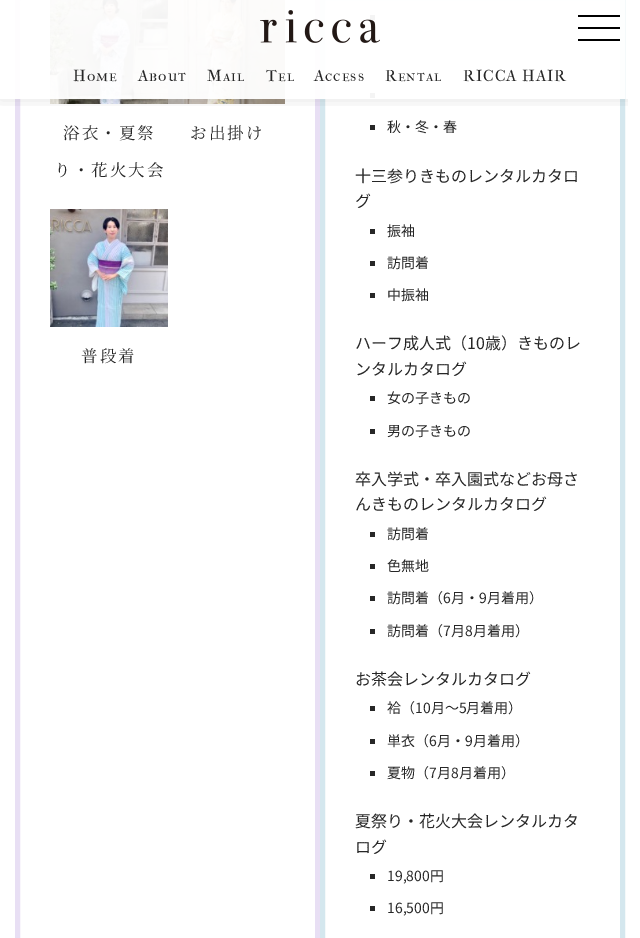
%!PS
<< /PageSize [640 938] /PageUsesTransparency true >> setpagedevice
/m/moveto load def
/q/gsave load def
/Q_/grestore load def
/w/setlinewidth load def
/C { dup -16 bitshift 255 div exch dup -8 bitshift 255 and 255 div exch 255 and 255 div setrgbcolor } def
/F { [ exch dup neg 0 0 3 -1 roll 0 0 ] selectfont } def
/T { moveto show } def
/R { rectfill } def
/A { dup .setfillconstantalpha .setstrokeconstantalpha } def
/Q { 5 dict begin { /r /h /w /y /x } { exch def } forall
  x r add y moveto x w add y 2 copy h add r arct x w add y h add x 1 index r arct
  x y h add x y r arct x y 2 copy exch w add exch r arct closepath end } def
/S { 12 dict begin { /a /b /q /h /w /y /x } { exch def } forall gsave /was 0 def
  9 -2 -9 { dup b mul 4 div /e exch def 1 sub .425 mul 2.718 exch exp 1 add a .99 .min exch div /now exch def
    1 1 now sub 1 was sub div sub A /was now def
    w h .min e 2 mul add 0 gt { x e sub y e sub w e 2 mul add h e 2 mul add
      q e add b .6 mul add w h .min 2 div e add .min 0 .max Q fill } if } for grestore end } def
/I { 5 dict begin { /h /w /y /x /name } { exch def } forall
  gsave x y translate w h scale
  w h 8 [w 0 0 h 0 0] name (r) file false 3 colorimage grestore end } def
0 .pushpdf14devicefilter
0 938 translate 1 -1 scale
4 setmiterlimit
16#FFFFFF C
0 0 640 938 R
16#E8DFF4 C
5 w
17.5 -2.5 300 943 rectstroke
(2.rgb) 50 0 118 104 I
(3.rgb) 168 0 117 104 I
16#D4E7EE C
322.5 -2.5 300 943 rectstroke
16#272727 C
370 15 5 5 R
370 93 5 5 R
q
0 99 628 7 rectclip
16#000000 C
0 1 640 99 0 7.5 .1 S
Q_
0.95 A
16#FFFFFF C
15 0 610 99 R
1 A
(1.rgb) 260 10 120 33 I
/IMFELLFrenchCanonSC-Regular 16 F
16#272727 C
73 81 m 1 0 (Home) ashow
138 81 m 1 0 (About) ashow
207 81 m 1 0 (Mail) ashow
266 81 m 1 0 (Tel) ashow
314 81 m 1 0 (Access) ashow
385 81 m 1 0 (Rental) ashow
463 81 m 1 0 (RICCA HAIR) ashow
16#000000 C
578 15 42 2 R
578 27 42 2 R
578 39 42 2 R
16#FFFFFF C
628 99 12 10 R
/NotoSerifJP-Regular 16.5 F
16#272727 C
63 139 m 2 0 (浴衣・夏祭) ashow
54 176 m 2 0 (り・花火大会) ashow
190 139 m 2 0 (お出掛け) ashow
(4.rgb) 50 209 118 118 I
81 362 m 2 0 (普段着) ashow
370 125 5 5 R
/NotoSansJP-Regular 14 F
(秋・冬・春) 387 132 T
/NotoSansJP-Regular 16 F
(十三参りきものレンタルカタロ) 355 182 T
(グ) 355 207 T
370 229 5 5 R
/NotoSansJP-Regular 14 F
(振袖) 387 236 T
370 261 5 5 R
(訪問着) 387 268 T
370 293 5 5 R
(中振袖) 387 300 T
/NotoSansJP-Regular 16 F
(ハーフ成人式（10歳）きものレ) 355 349 T
(ンタルカタログ) 355 375 T
370 396 5 5 R
/NotoSansJP-Regular 14 F
(女の子きもの) 387 403 T
370 429 5 5 R
(男の子きもの) 387 436 T
/NotoSansJP-Regular 16 F
(卒入学式・卒入園式などお母さ) 355 485 T
(んきものレンタルカタログ) 355 510 T
370 532 5 5 R
/NotoSansJP-Regular 14 F
(訪問着) 387 539 T
370 564 5 5 R
(色無地) 387 571 T
370 596 5 5 R
(訪問着（6月・9月着用）) 387 603 T
370 629 5 5 R
(訪問着（7月8月着用）) 387 636 T
/NotoSansJP-Regular 16 F
(お茶会レンタルカタログ) 355 685 T
370 706 5 5 R
/NotoSansJP-Regular 14 F
(袷（10月～5月着用）) 387 713 T
370 739 5 5 R
(単衣（6月・9月着用）) 387 746 T
370 771 5 5 R
(夏物（7月8月着用）) 387 778 T
/NotoSansJP-Regular 16 F
(夏祭り・花火大会レンタルカタ) 355 827 T
(ログ) 355 853 T
370 874 5 5 R
/NotoSansJP-Regular 14 F
(19,800円) 387 881 T
370 906 5 5 R
(16,500円) 387 913 T
.poppdf14devicefilter showpage
